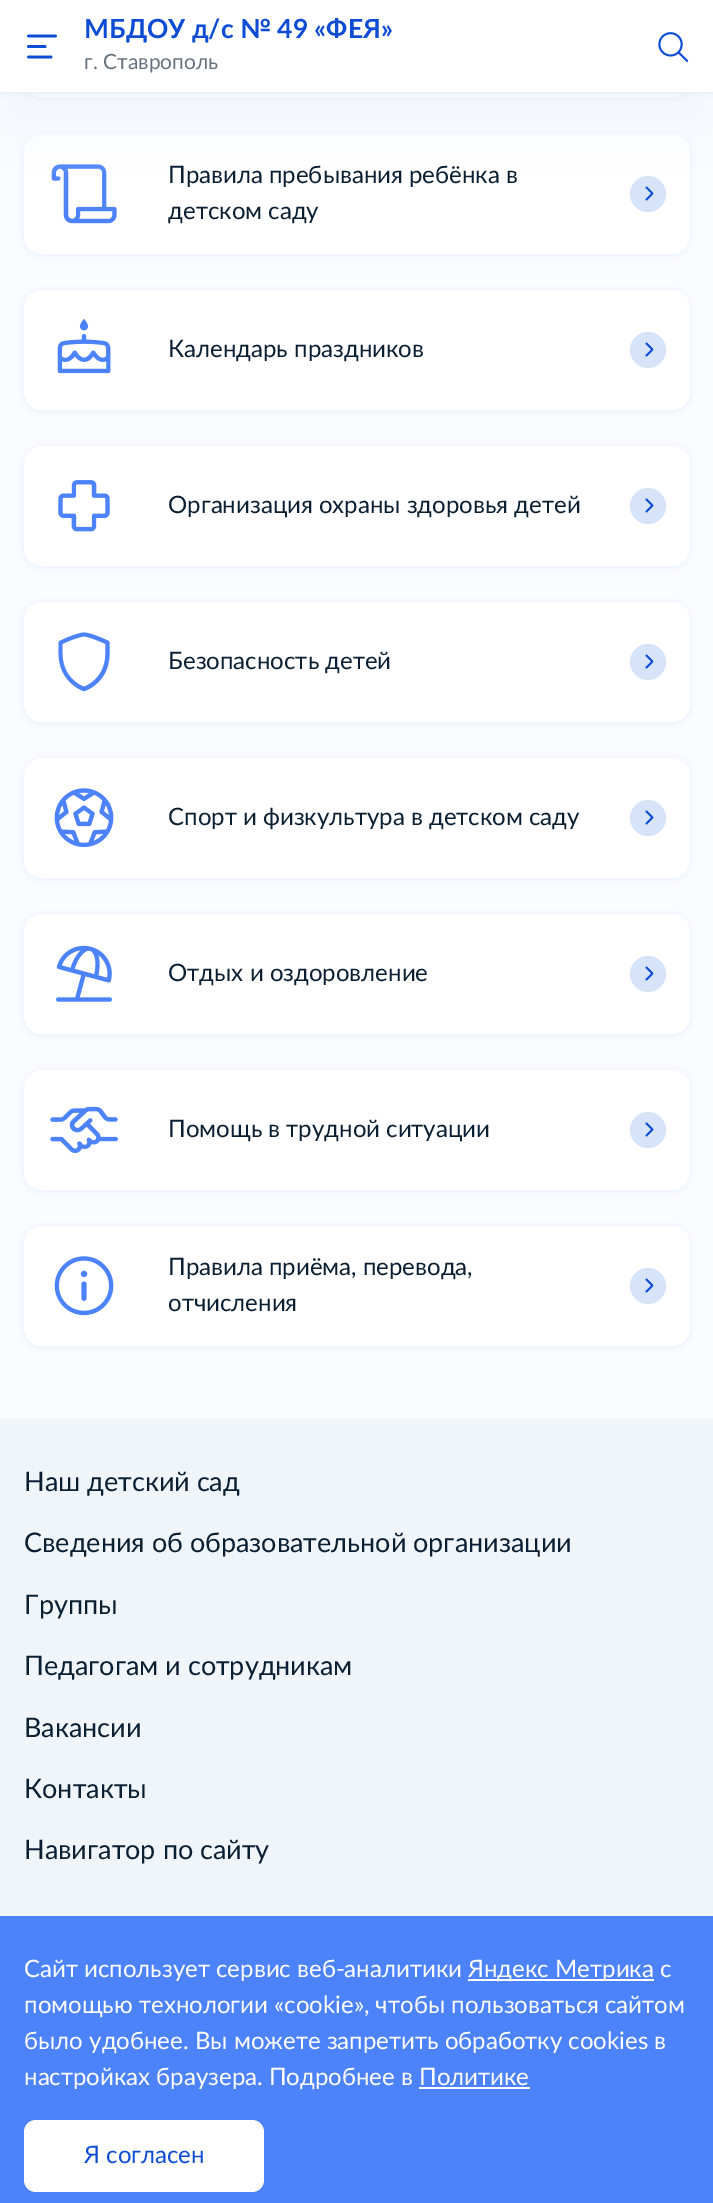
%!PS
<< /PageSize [713 2203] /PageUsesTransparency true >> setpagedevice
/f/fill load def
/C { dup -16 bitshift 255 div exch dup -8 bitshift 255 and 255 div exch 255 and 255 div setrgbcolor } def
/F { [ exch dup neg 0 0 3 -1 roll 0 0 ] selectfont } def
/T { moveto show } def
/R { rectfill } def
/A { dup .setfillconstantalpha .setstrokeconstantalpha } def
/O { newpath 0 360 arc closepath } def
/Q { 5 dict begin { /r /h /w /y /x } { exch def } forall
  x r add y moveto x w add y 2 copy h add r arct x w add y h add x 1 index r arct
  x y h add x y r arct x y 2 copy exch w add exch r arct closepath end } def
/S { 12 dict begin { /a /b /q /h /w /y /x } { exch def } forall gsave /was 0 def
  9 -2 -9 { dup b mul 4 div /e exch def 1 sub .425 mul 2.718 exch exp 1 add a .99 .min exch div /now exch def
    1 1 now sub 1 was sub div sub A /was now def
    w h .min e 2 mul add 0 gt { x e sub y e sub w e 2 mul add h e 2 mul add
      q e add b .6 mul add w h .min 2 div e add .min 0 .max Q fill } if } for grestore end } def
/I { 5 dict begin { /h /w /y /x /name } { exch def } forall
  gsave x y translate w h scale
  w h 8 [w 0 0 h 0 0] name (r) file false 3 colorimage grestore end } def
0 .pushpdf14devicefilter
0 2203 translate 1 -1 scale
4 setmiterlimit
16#FAFCFF C
0 0 713 2203 R
16#E3EBFC C
24 -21 666 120 18 3 1 S
16#FFFFFF C
24 -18 666 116 18 Q f
16#E3EBFC C
24 135 666 120 18 3 1 S
16#FFFFFF C
24 134 666 120 18 Q f
(3.rgb) 51 164 66 60 I
16#D6E3F9 C
648 194 18 O f
(4.rgb) 645 186 9 15 I
16#E6EBF5 C
0 36 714 92 0 36 .4 S
16#E3EBFC C
0 2 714 91 0 3 1 S
16#FFFFFF C
0 0 713 92 R
(1.rgb) 27 34 30 25 I
/Lato-Bold 26.4 F
16#0D4CD3 C
(МБДОУ д/с № 49 «ФЕЯ») 84 38 T
/Lato-Regular 21 F
16#66727F C
(г. Ставрополь) 84 69 T
(2.rgb) 658 32 31 30 I
/Lato-Regular 24 F
16#0B1F33 C
(Правила пребывания ребёнка в) 168 183 T
(детском саду) 168 219 T
16#E3EBFC C
24 291 666 120 18 3 1 S
16#FFFFFF C
24 290 666 120 18 Q f
(5.rgb) 57 319 54 55 I
16#0B1F33 C
(Календарь праздников) 168 357 T
16#D6E3F9 C
648 350 18 O f
(4.rgb) 645 342 9 15 I
16#E3EBFC C
24 447 666 120 18 3 1 S
16#FFFFFF C
24 446 666 120 18 Q f
(6.rgb) 58 480 52 52 I
16#0B1F33 C
(Организация охраны здоровья детей) 168 513 T
16#D6E3F9 C
648 506 18 O f
(4.rgb) 645 498 9 15 I
16#E3EBFC C
24 603 666 120 18 3 1 S
16#FFFFFF C
24 602 666 120 18 Q f
(7.rgb) 58 632 52 60 I
16#0B1F33 C
(Безопасность детей) 168 669 T
16#D6E3F9 C
648 662 18 O f
(4.rgb) 645 654 9 15 I
16#E3EBFC C
24 759 666 120 18 3 1 S
16#FFFFFF C
24 758 666 120 18 Q f
(8.rgb) 54 788 60 60 I
16#0B1F33 C
(Спорт и физкультура в детском саду) 168 825 T
16#D6E3F9 C
648 818 18 O f
(4.rgb) 645 810 9 15 I
16#E3EBFC C
24 915 666 120 18 3 1 S
16#FFFFFF C
24 914 666 120 18 Q f
(9.rgb) 56 945 56 57 I
16#0B1F33 C
(Отдых и оздоровление) 168 981 T
16#D6E3F9 C
648 974 18 O f
(4.rgb) 645 966 9 15 I
16#E3EBFC C
24 1071 666 120 18 3 1 S
16#FFFFFF C
24 1070 666 120 18 Q f
(10.rgb) 50 1106 68 48 I
16#0B1F33 C
(Помощь в трудной ситуации) 168 1137 T
16#D6E3F9 C
648 1130 18 O f
(4.rgb) 645 1122 9 15 I
16#E3EBFC C
24 1227 666 120 18 3 1 S
16#FFFFFF C
24 1226 666 120 18 Q f
(11.rgb) 54 1256 60 60 I
16#0B1F33 C
(Правила приёма, перевода,) 168 1275 T
(отчисления) 168 1311 T
16#D6E3F9 C
648 1286 18 O f
(4.rgb) 645 1278 9 15 I
16#EFF5F9 C
0 1418 713 498 R
/Lato-Regular 27 F
16#0B1F33 C
(Наш детский сад) 24 1491 T
(Сведения об образовательной организации) 24 1552 T
(Группы) 24 1614 T
(Педагогам и сотрудникам) 24 1675 T
(Вакансии) 24 1737 T
(Контакты) 24 1798 T
(Навигатор по сайту) 24 1859 T
16#4D83FA C
0 1916 713 287 R
/Lato-Regular 24 F
16#FFFFFF C
(Сайт использует сервис веб-аналитики) 24 1977 T
468 1979 186 2 R
(Яндекс Метрика с) 468 1977 T
(помощью технологии «cookie», чтобы пользоваться сайтом) 24 2013 T
(было удобнее. Вы можете запретить обработку cookies в) 24 2049 T
(настройках браузера. Подробнее в Политике) 24 2085 T
419 2087 111 2 R
24 2120 240 72 12 Q f
16#0D4CD3 C
(Я согласен) 84 2163 T
.poppdf14devicefilter showpage
